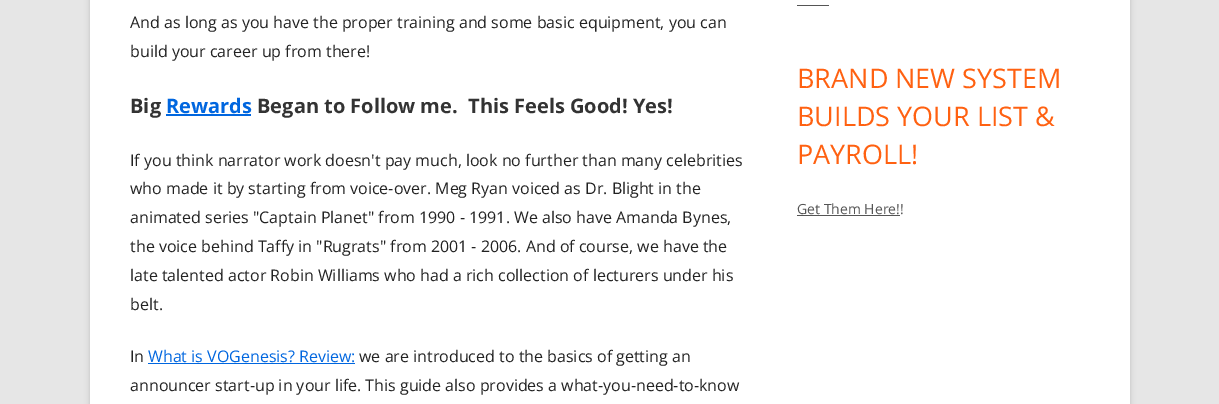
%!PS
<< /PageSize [1219 404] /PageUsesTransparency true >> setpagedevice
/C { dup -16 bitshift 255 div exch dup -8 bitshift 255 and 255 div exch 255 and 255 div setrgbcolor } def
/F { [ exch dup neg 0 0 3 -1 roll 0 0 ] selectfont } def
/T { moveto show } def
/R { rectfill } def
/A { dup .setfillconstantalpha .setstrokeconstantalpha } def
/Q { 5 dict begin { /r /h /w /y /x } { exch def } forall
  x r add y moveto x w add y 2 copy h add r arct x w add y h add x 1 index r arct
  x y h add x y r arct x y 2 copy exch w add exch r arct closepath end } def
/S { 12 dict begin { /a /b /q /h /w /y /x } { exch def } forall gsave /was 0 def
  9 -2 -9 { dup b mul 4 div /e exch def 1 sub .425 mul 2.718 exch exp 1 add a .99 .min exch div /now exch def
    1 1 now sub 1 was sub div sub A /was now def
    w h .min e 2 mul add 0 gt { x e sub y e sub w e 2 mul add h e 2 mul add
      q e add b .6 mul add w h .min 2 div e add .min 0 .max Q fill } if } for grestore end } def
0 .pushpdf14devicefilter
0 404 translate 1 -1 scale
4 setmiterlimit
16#E6E6E6 C
0 0 1219 404 R
16#646464 C
90 -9 1040 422 0 3 .3 S
16#FFFFFF C
90 0 1040 404 R
/OpenSans-Regular 16 F
16#222222 C
(And as long as you have the proper training and some basic equipment, you can) 130 28 T
(build your career up from there!) 130 57 T
/OpenSans-Bold 20 F
16#333333 C
(Big) 130 113 T
16#0066DF C
(Rewards) 166 113 T
166 114 85 2 R
16#333333 C
(Began to Follow me.  This Feels Good! Yes!) 257 113 T
/OpenSans-Regular 16 F
16#222222 C
(If you think narrator work doesn't pay much, look no further than many celebrities) 130 166 T
(who made it by starting from voice-over. Meg Ryan voiced as Dr. Blight in the) 130 194 T
(animated series "Captain Planet" from 1990 - 1991. We also have Amanda Bynes,) 130 223 T
(the voice behind Taffy in "Rugrats" from 2001 - 2006. And of course, we have the) 130 252 T
(late talented actor Robin Williams who had a rich collection of lecturers under his) 130 281 T
(belt.) 130 310 T
(In) 130 362 T
16#0066DF C
(What is VOGenesis? Review:) 148 362 T
148 363 207 1 R
16#222222 C
(we are introduced to the basics of getting an) 359 362 T
(announcer start-up in your life. This guide also provides a what-you-need-to-know) 130 391 T
16#555555 C
797 5 32 1 R
/OpenSans-Regular 27 F
16#FF6111 C
(BRAND NEW SYSTEM) 797 88 T
(BUILDS YOUR LIST &) 797 126 T
(PAYROLL!) 797 164 T
/OpenSans-Regular 14 F
16#555555 C
(Get Them Here!!) 797 214 T
797 215 103 1 R
.poppdf14devicefilter showpage
